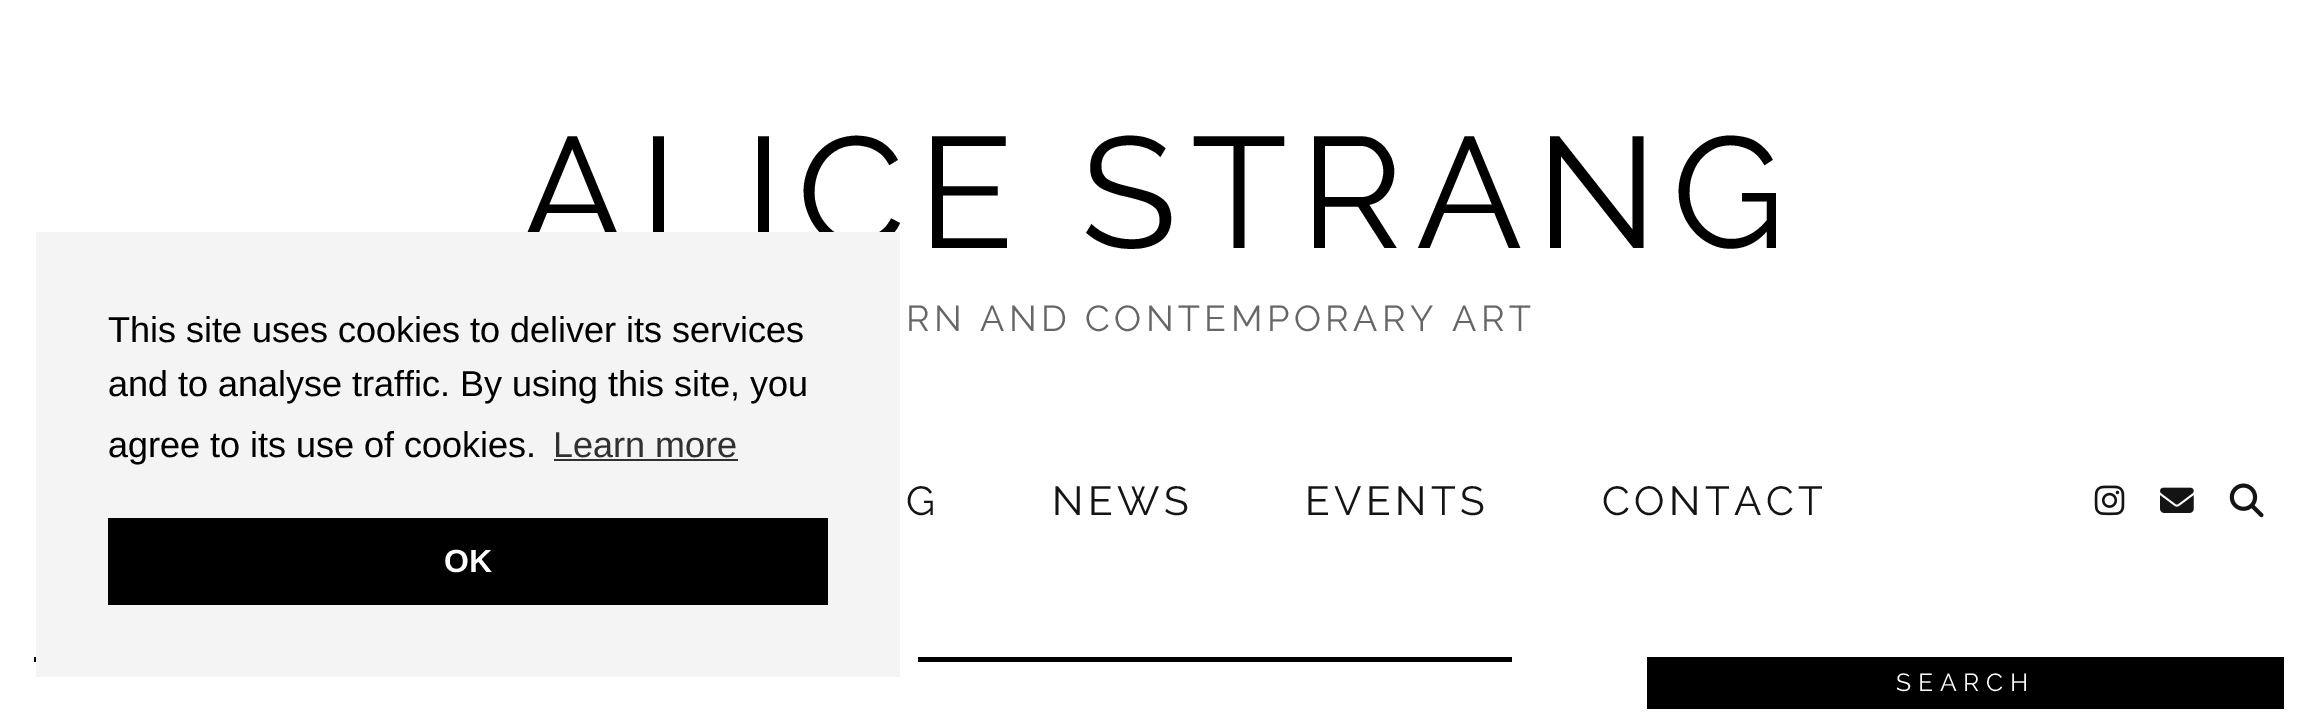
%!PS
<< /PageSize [2317 713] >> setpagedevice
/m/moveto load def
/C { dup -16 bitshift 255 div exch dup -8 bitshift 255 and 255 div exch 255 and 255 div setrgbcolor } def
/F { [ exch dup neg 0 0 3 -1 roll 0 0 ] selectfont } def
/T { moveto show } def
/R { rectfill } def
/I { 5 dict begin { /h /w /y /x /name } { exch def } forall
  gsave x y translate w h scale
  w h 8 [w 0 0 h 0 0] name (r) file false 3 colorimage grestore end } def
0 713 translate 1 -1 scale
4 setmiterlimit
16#FFFFFF C
0 0 2317 713 R
/Raleway-Thin 157.5 F
16#000000 C
519 248 m 13.5 0 (ALICE STRANG) ashow
/Raleway-Thin 36 F
16#666666 C
906 331 m 4.5 0 (RN AND CONTEMPORARY ART) ashow
16#000000 C
34 657 1478 5 R
16#F4F4F4 C
36 232 864 445 R
/LiberationSans-Regular 36 F
16#000000 C
(This site uses cookies to deliver its services) 108 342 T
(and to analyse traffic. By using this site, you) 108 396 T
(agree to its use of cookies.) 108 457 T
16#313131 C
(Learn more) 553 457 T
554 459 184 2 R
16#000000 C
108 518 720 87 R
/LiberationSans-Bold 32 F
16#FFFFFF C
(OK) 444 572 T
/Raleway-Thin 40.5 F
16#141414 C
906 515 m 4.5 0 (G) ashow
1052 515 m 4.5 0 (NEWS) ashow
1305 515 m 4.5 0 (EVENTS) ashow
1602 515 m 4.5 0 (CONTACT) ashow
(1.rgb) 2094 485 31 31 I
(2.rgb) 2160 487 34 26 I
(3.rgb) 2229 483 35 35 I
16#FFFFFF C
900 657 18 5 R
16#000000 C
1647 657 637 52 R
/Raleway-Thin 24.75 F
16#FFFFFF C
1896 691 m 6.75 0 (SEARCH) ashow
showpage
